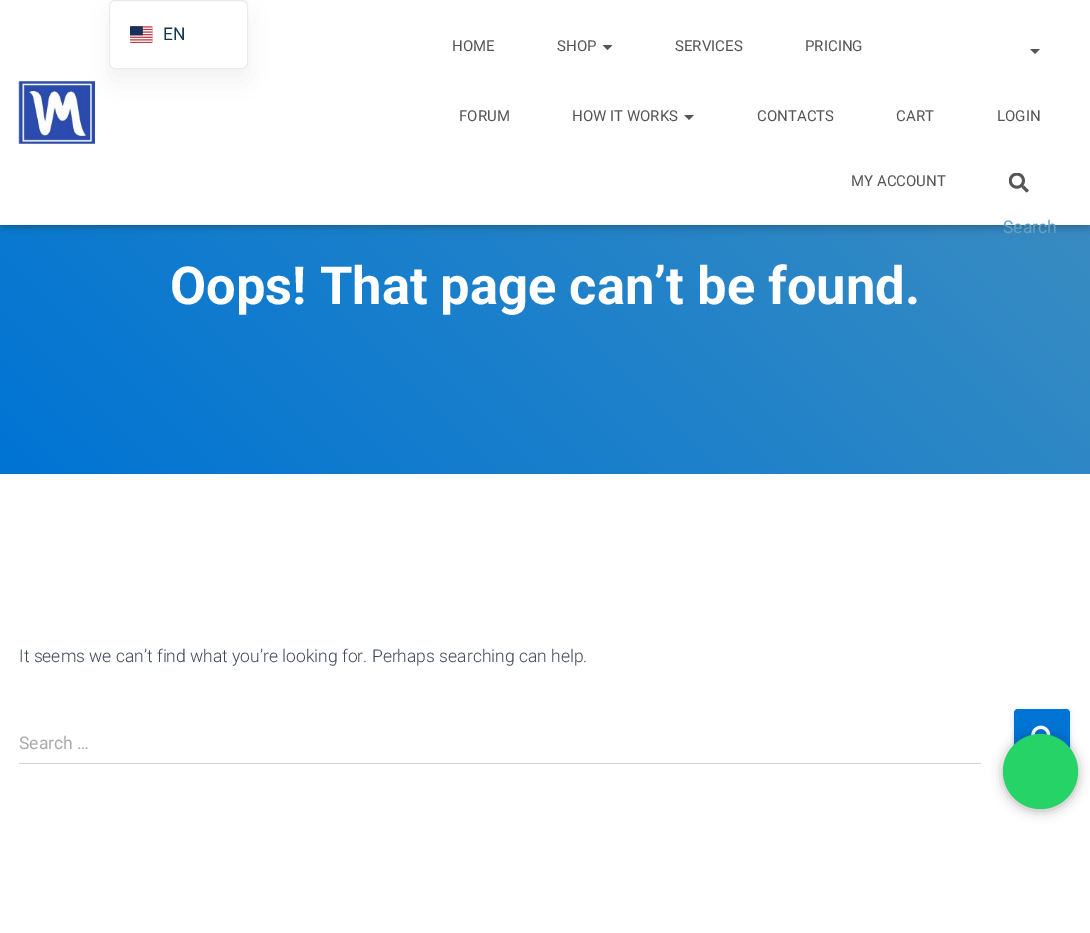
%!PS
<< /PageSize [1090 933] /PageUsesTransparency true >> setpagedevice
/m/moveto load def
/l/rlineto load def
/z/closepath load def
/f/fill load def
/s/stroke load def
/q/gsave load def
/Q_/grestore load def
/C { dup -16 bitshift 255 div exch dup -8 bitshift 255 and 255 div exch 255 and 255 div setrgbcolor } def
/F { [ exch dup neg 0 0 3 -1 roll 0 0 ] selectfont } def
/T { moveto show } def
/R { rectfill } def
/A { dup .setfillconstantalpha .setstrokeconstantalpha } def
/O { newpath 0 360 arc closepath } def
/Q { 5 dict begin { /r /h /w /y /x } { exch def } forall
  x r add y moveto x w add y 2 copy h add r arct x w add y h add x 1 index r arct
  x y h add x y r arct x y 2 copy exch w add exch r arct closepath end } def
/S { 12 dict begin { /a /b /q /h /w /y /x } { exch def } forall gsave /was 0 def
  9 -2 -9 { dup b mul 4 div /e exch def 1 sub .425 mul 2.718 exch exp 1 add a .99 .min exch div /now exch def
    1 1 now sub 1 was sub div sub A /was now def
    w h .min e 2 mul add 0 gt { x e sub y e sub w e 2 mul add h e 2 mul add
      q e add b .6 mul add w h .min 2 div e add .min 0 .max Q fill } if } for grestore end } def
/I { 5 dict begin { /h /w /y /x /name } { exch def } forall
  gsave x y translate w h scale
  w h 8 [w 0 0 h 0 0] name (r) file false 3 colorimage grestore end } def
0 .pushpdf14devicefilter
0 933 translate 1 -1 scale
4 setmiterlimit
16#FFFFFF C
0 0 1090 933 R
q 0 225 m 1090 0 l 0 249 l -1090 0 l z clip newpath
<< /ShadingType 2 /ColorSpace /DeviceRGB /Coords [154 628 936 -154] /Extend [true true] /Function << /FunctionType 2 /Domain [0 1] /C0 [0 .455 .831] /C1 [.259 .565 .749] /N 1 >> >> shfill Q_
16#000000 C
3 8 1085 220 0 3 .1 S
0 1 1090 225 0 6 .12 S
8 9 1075 210 0 6 .42 S
16#FFFFFF C
0 0 1090 225 R
(2.rgb) 18 81 77 63 I
16#000000 C
109 13 139 68 6 12.5 .05 S
16#FFFFFF C
109.5 .5 138 68 5.5 Q q f Q_
16#E7EBEE C
s
(1.rgb) 130 26 23 17 I
/Roboto-Regular 17.5 F
16#143852 C
(EN) 163 40 T
/Roboto-Regular 15 F
16#555555 C
(HOME) 452 51 T
(SHOP) 557 51 T
602.5 45 m 10 0 l -5 5 l z f
(SERVICES) 675 51 T
(PRICING) 805 51 T
1030 49 m 10 0 l -5 5 l z f
(FORUM) 459 121 T
(HOW IT WORKS) 572 121 T
684 115 m 10 0 l -5 5 l z f
(CONTACTS) 757 121 T
(CART) 896 121 T
(LOGIN) 997 121 T
(MY ACCOUNT) 851 186 T
(3.rgb) 1009 173 20 20 I
/Roboto-Regular 17.5 F
16#68A0C5 C
(Search) 1003 233 T
/Roboto-Bold 52.5 F
16#FFFFFF C
(Oops! That page can’t be found.) 170 304 T
/Roboto-Light 17.5 F
16#3C4858 C
(It seems we can’t find what you’re looking for. Perhaps searching can help.) 19 662 T
/Roboto-Regular 17.5 F
16#AAAAAA C
(Search …) 19 749 T
16#D2D2D2 C
19 763 962 1 R
16#0074D4 C
1014 710 56 55 4 3 .12 S
1014 711 56 55 4 1 .14 S
1014 709 56 55 4 Q f
(4.rgb) 1031 725 20 11 I
16#000000 C
1003 736 75 75 37.5 6 .3 S
16#25D366 C
1040.5 771.5 37.5 O f
.poppdf14devicefilter showpage
